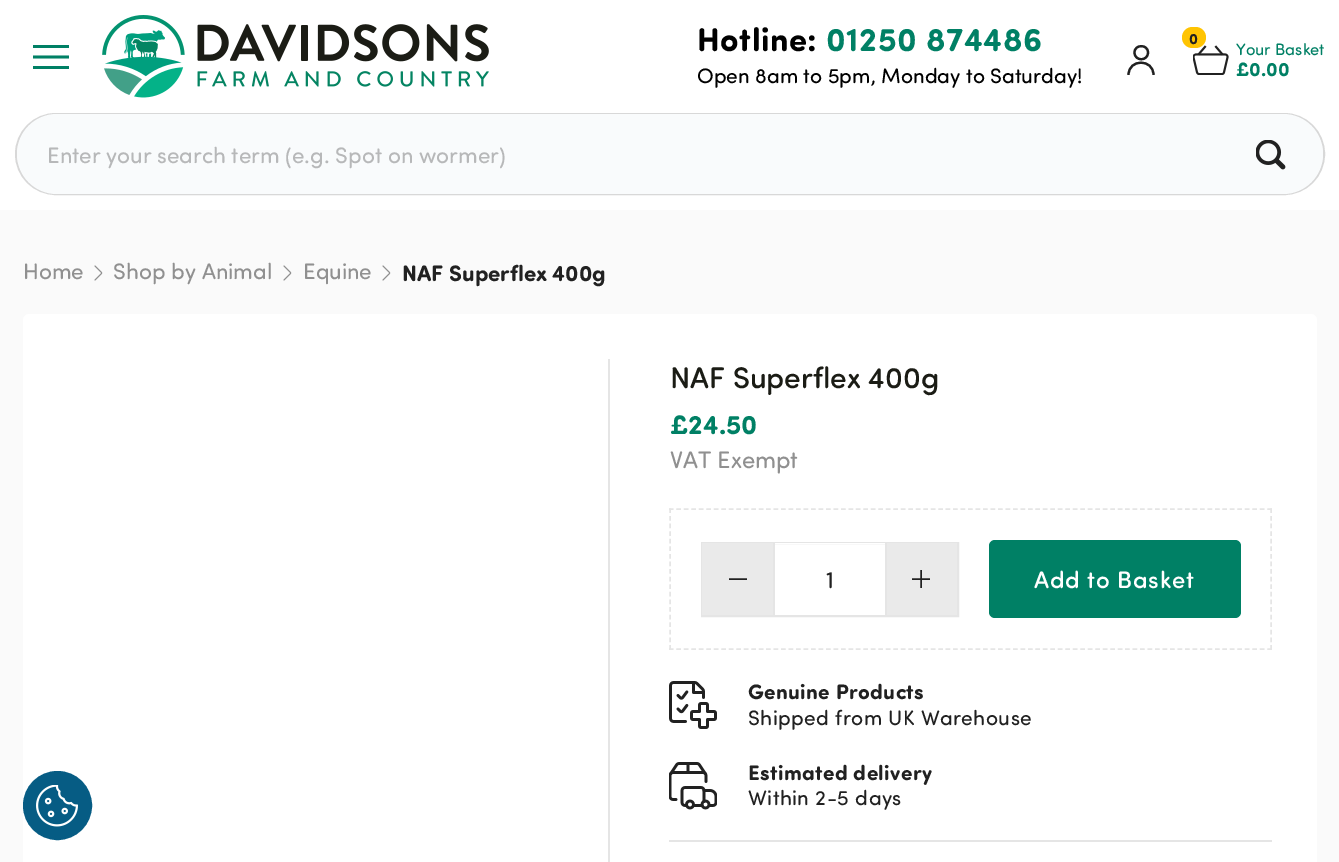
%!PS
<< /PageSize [1339 862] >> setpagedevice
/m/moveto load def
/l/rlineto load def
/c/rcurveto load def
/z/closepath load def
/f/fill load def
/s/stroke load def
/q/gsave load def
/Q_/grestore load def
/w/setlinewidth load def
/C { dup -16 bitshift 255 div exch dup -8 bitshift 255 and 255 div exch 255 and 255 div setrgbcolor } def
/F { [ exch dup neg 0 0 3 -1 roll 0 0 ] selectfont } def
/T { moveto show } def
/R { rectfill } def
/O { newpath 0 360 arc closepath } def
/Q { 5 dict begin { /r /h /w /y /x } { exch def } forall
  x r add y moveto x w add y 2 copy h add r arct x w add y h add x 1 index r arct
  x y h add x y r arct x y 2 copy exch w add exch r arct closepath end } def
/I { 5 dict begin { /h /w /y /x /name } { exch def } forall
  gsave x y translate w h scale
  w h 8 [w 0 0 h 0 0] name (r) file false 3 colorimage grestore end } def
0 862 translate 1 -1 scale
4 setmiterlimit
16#FAFAFA C
0 0 1339 862 R
16#FFFFFF C
0 0 1339 210 R
16#008065 C
69 58.5 m -36 0 l 0 -3 l 36 0 l z 69 45 m -36 0 l 0 3 l 36 0 l z 69 66 m -36 0 l 0 3 l 36 0 l z f
(1.rgb) 102 15 387 83 I
/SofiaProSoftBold-Bold 33 F
16#000000 C
697 51 m .5 0 (Hotline:) ashow
16#008065 C
826 51 m .5 0 (01250 874486) ashow
/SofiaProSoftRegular-Regular 21 F
16#000000 C
(Open 8am to 5pm, Monday to Saturday!) 697 83 T
16#212121 C
2.2 w
1 setlinecap
1 setlinejoin
1134.5 52.5 m 0 9 13.5 9 13.5 0 c 0 -8.5 -13.5 -8.5 -13.5 0 c z s
q
1127 45 30 30 rectclip
1128.5 75 m 0 -16.5 25 -16.5 25 0 c s
Q_
(2.rgb) 1193 45 36 30 I
16#FFC402 C
1182 27 24 21 10.5 Q f
/SofiaProSoftBold-Bold 15 F
16#212121 C
(0) 1189 44 T
/SofiaProSoftRegular-Regular 16.5 F
16#008065 C
(Your Basket) 1236 55 T
/SofiaProSoftBold-Bold 19.5 F
(£0.00) 1236 76 T
16#D8D8D8 C
2 w
0 setlinecap
0 setlinejoin
16 114 1308 80 40 Q s
16#F9FBFC C
17 114 1306 80 40 Q f
/SofiaProSoftRegular-Regular 22.5 F
16#B7B8B9 C
(Enter your search term \(e.g. Spot on wormer\)) 47 163 T
(3.rgb) 1256 140 30 30 I
16#909090 C
(Home) 23 279 T
.9 w
1 setlinecap
1 setlinejoin
95 266 m 5.5 5.5 l 1.5 1.5 1.5 1.5 0 3 c -5.5 5.5 l s
(Shop by Animal) 113 279 T
284 266 m 5.5 5.5 l 1.5 1.5 1.5 1.5 0 3 c -5.5 5.5 l s
(Equine) 303 279 T
383 266 m 5.5 5.5 l 1.5 1.5 1.5 1.5 0 3 c -5.5 5.5 l s
/SofiaProSoftBold-Bold 22.5 F
16#212121 C
(NAF Superflex 400g) 402 281 T
16#FFFFFF C
23 314 1294 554 6 Q f
16#E5E5E5 C
608 359 2 503 R
/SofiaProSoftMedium-Medium 30 F
16#1B1C15 C
(NAF Superflex 400g) 670 388 T
/SofiaProSoftBold-Bold 27 F
16#008065 C
(£24.50) 670 434 T
/SofiaProSoftRegular-Regular 24 F
16#909090 C
(VAT Exempt) 670 468 T
16#E5E5E5 C
1.5 w
0 setlinecap
0 setlinejoin
[4.5 2.98] 0 setdash
669 509 m 603 0 l s
[4.5 3.09] 0 setdash
1271 508.5 m 0 141 l s
[4.5 2.98] 0 setdash
669 649 m 603 0 l s
[4.5 3.09] 0 setdash
670 508.5 m 0 141 l s
2 w
[] 0 setdash
702 543 256 73 rectstroke
16#EAEAEA C
702 543 71 72 R
16#E5E5E5 C
773 543 2 72 R
q
729 570 18 18 rectclip
16#212121 C
1.5 w
1 setlinecap
1 setlinejoin
729.5 579 m 17 0 l s
Q_
16#FFFFFF C
775 543 110 1 R
16#212121 C
(1) 826 588 T
16#EAEAEA C
887 543 70 72 R
16#E5E5E5 C
885 543 2 72 R
q
912 570 18 18 rectclip
16#212121 C
1.5 w
1 setlinecap
1 setlinejoin
912.5 579 m 17 0 l 921 570.5 m 0 17 l s
Q_
16#008065 C
989 540 252 78 6 Q f
/SofiaProSoftMedium-Medium 24 F
16#FFFFFF C
1034 588 m .75 0 (Add to Basket) ashow
16#E5E5E5 C
669 840 603 2 R
(4.rgb) 669 681 48 48 I
/SofiaProSoftBold-Bold 21 F
16#212121 C
748 699 m .4 0 (Genuine Products) ashow
/SofiaProSoftRegular-Regular 21 F
748 725 m .4 0 (Shipped from UK Warehouse) ashow
(5.rgb) 669 762 48 48 I
/SofiaProSoftBold-Bold 21 F
748 780 m .4 0 (Estimated delivery) ashow
/SofiaProSoftRegular-Regular 21 F
748 805 m .4 0 (Within 2-5 days) ashow
16#065C84 C
57.5 805.5 33.5 O q f Q_
s
(6.rgb) 36 785 42 42 I
showpage
